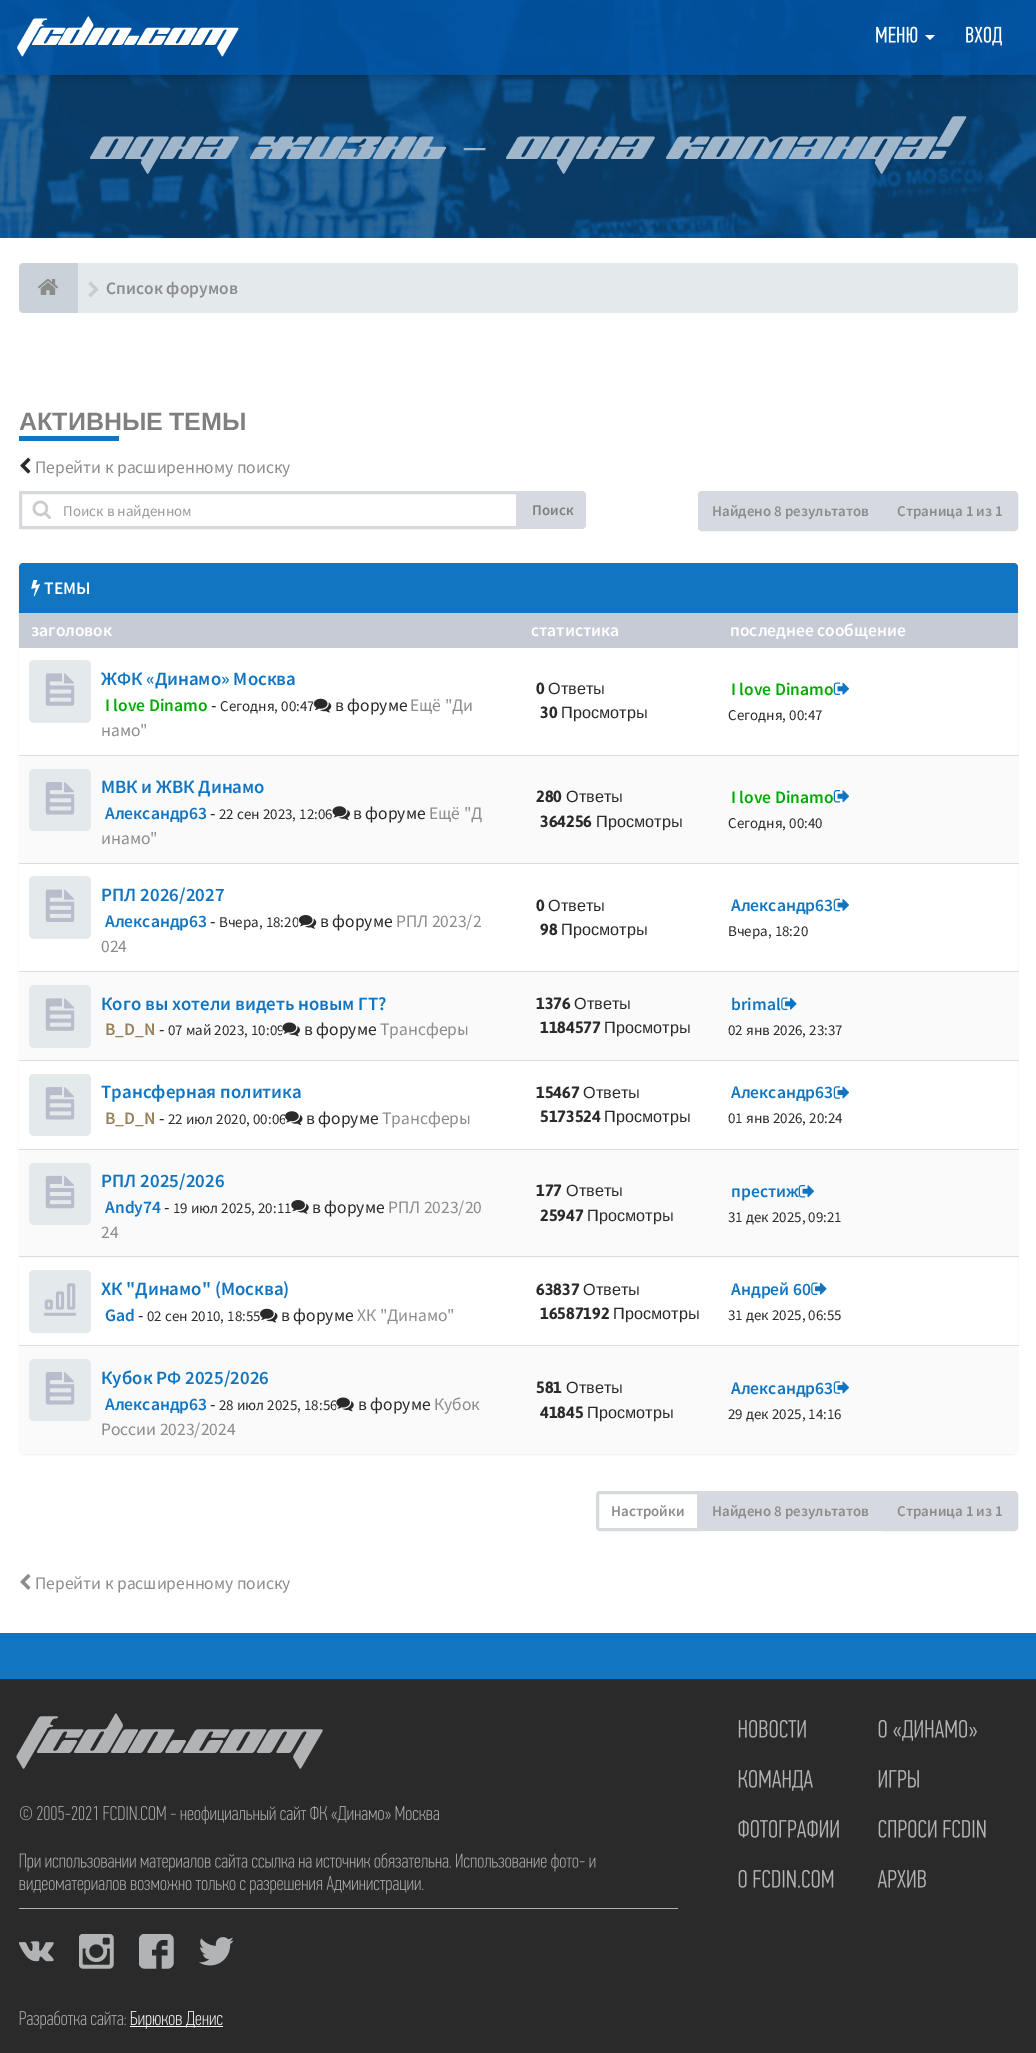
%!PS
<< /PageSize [1036 2053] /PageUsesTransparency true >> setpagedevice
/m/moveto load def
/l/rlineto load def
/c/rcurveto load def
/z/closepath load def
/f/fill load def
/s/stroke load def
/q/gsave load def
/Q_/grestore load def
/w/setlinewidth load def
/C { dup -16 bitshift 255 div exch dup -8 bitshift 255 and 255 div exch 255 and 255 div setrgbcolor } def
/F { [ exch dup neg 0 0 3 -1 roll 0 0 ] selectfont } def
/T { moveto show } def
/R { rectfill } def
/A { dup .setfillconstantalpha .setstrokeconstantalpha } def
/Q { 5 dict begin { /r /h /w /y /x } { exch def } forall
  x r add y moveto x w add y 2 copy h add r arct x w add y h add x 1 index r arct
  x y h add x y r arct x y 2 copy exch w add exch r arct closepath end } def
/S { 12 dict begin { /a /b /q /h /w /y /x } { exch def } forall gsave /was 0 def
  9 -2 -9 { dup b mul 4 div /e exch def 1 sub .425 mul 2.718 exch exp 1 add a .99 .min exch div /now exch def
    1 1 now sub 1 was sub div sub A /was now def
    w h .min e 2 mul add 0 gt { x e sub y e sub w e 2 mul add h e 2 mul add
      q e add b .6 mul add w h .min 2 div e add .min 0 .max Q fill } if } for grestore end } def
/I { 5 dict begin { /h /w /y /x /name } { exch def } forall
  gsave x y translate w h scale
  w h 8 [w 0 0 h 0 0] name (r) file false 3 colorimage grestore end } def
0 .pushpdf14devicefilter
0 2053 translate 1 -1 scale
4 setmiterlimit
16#1175C1 C
0 0 1036 2053 R
(1.rgb) 0 0 1036 238 I
q
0 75 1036 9 rectclip
16#000000 C
0 0 1036 75 0 6 .3 S
Q_
0.8 A
16#0054A6 C
0 0 1036 75 R
/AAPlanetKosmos-Regular 32.5 F
1 A
16#FFFFFF C
(FCDIN.COM) 19 45 T
(2.rgb) 876 26 42 17 I
925 35 m 10 0 l -5 5 l z f
(3.rgb) 966 26 36 20 I
/AAPlanetKosmos-Regular 42.5 F
16#A0B7CB C
(ОДНА ЖИЗНЬ) 90 159 T
/LiberationSerif-Regular 42.5 F
(–) 464 159 T
/AAPlanetKosmos-Regular 42.5 F
(ОДНА КОМАНДА!) 506 159 T
16#FFFFFF C
0 238 1036 1395 R
16#E4E9EB C
19 263 999 50 5 Q f
16#C8D2D8 C
24 263 m 54 0 l 0 50 l -54 0 l -3 0 -5 -2 -5 -5 c 0 -40 l 0 -3 2 -5 5 -5 c z f
(4.rgb) 38 278 20 17 I
(5.rgb) 88 281 11 17 I
/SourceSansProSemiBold-SemiBold 17.5 F
16#8C8C8C C
(Список форумов) 106 294 T
/LiberationSans-Bold 25 F
16#7F7F7F C
19 430 m -1 0 32 (АКТИВНЫЕ ТЕМЫ) widthshow
16#1175C1 C
19 436 100 5 R
(6.rgb) 20 457 11 17 I
/SourceSansPro-Regular 17.5 F
16#8C8C8C C
(Перейти к расширенному поиску) 35 473 T
16#D6D9E0 C
3 w
20.5 492.5 497 35 rectstroke
(7.rgb) 32 500 19 19 I
/SourceSansPro-Regular 15 F
16#999999 C
(Поиск в найденном) 63 516 T
16#D6D9E0 C
519 491 m 63 0 l 2 0 4 2 4 4 c 0 30 l 0 2 -2 4 -4 4 c -63 0 l z f
/SourceSansProSemiBold-SemiBold 15 F
16#7F7F7F C
(Поиск) 532 515 T
16#D6D9E0 C
702 492.5 m 181.5 0 l 0 37 l -181.5 0 l -1.5 0 -2.5 -1 -2.5 -2.5 c 0 -32 l 0 -1.5 1 -2.5 2.5 -2.5 c z q f Q_
s
16#8C8C8C C
(Найдено 8 результатов) 712 516 T
16#D6D9E0 C
884.5 492.5 m 129.5 0 l 1.5 0 2.5 1 2.5 2.5 c 0 32 l 0 1.5 -1 2.5 -2.5 2.5 c -129.5 0 l z q f Q_
s
16#8C8C8C C
(Страница 1 из 1) 897 516 T
16#000000 C
19 564 999 891 5 .5 .05 S
16#1175C1 C
23 563 m 991 0 l 2 0 4 2 4 4 c 0 46 l -999 0 l 0 -46 l 0 -2 2 -4 4 -4 c z f
(8.rgb) 31 580 9 17 I
/SourceSansProSemiBold-SemiBold 17.5 F
16#FFFFFF C
(ТЕМЫ) 44 594 T
16#C7CBD6 C
19 613 999 35 R
16#FFFFFF C
(заголовок) 31 636 T
(статистика) 531 636 T
(последнее сообщение) 730 636 T
19 648 999 107 R
16#E4E9EB C
29 660 62 63 5 Q f
(9.rgb) 45 673 30 33 I
/SourceSansProSemiBold-SemiBold 18.9 F
16#1175C1 C
(ЖФК «Динамо» Москва) 101 685 T
/SourceSansProSemiBold-SemiBold 17.5 F
16#00AA00 C
(I love Dinamo) 105 711 T
/SourceSansPro-Regular 17.5 F
16#2A2A2A C
(-) 211 711 T
/SourceSansPro-Regular 15 F
(Сегодня, 00:47) 220 711 T
(10.rgb) 313 698 19 15 I
/SourceSansPro-Regular 17.5 F
(в форуме) 335 711 T
16#8C8C8C C
(Ещё "Ди) 410 711 T
(намо") 101 736 T
/Asap-Bold 16.25 F
16#2A2A2A C
(0) 536 694 T
/LiberationSans-Regular 16.25 F
(Ответы) 548 694 T
/Asap-Bold 16.25 F
(30) 540 718 T
/LiberationSans-Regular 16.25 F
(Просмотры) 561 718 T
/SourceSansProSemiBold-SemiBold 17.5 F
16#00AA00 C
(I love Dinamo) 731 695 T
(11.rgb) 833 682 16 13 I
/SourceSansPro-Regular 15 F
16#2A2A2A C
(Сегодня, 00:47) 728 720 T
16#FAFAFA C
19 756 999 107 R
16#E4E9EB C
29 769 62 62 5 Q f
(12.rgb) 45 782 30 33 I
/SourceSansProSemiBold-SemiBold 18.9 F
16#1175C1 C
(МВК и ЖВК Динамо) 101 793 T
/SourceSansProSemiBold-SemiBold 17.5 F
(Александр63) 105 819 T
/SourceSansPro-Regular 17.5 F
16#2A2A2A C
(-) 210 819 T
/SourceSansPro-Regular 15 F
(22 сен 2023, 12:06) 219 819 T
(13.rgb) 332 806 18 14 I
/SourceSansPro-Regular 17.5 F
(в форуме) 353 819 T
16#8C8C8C C
(Ещё "Д) 429 819 T
(инамо") 101 844 T
/Asap-Bold 16.25 F
16#2A2A2A C
(280) 536 802 T
/LiberationSans-Regular 16.25 F
(Ответы) 566 802 T
/Asap-Bold 16.25 F
(364256) 540 827 T
/LiberationSans-Regular 16.25 F
(Просмотры) 596 827 T
16#DDDDDD C
19 755 1000 1 R
/SourceSansProSemiBold-SemiBold 17.5 F
16#00AA00 C
(I love Dinamo) 731 803 T
(14.rgb) 833 790 16 13 I
/SourceSansPro-Regular 15 F
16#2A2A2A C
(Сегодня, 00:40) 728 828 T
16#FFFFFF C
19 864 999 107 R
16#E4E9EB C
29 876 62 63 5 Q f
(15.rgb) 45 889 30 33 I
/SourceSansProSemiBold-SemiBold 18.9 F
16#1175C1 C
(РПЛ 2026/2027) 101 901 T
/SourceSansProSemiBold-SemiBold 17.5 F
(Александр63) 105 927 T
/SourceSansPro-Regular 17.5 F
16#2A2A2A C
(-) 210 927 T
/SourceSansPro-Regular 15 F
(Вчера, 18:20) 219 927 T
(16.rgb) 298 915 19 14 I
/SourceSansPro-Regular 17.5 F
(в форуме) 320 927 T
16#8C8C8C C
(РПЛ 2023/2) 396 927 T
(024) 101 952 T
/Asap-Bold 16.25 F
16#2A2A2A C
(0) 536 911 T
/LiberationSans-Regular 16.25 F
(Ответы) 548 911 T
/Asap-Bold 16.25 F
(98) 540 935 T
/LiberationSans-Regular 16.25 F
(Просмотры) 561 935 T
16#DDDDDD C
19 863 1000 1 R
/SourceSansProSemiBold-SemiBold 17.5 F
16#1175C1 C
(Александр63) 731 911 T
(17.rgb) 833 898 16 14 I
/SourceSansPro-Regular 15 F
16#2A2A2A C
(Вчера, 18:20) 728 936 T
16#FAFAFA C
19 972 999 88 R
16#E4E9EB C
29 985 62 63 5 Q f
(9.rgb) 45 998 30 33 I
/SourceSansProSemiBold-SemiBold 18.9 F
16#1175C1 C
(Кого вы хотели видеть новым ГТ?) 101 1010 T
/SourceSansProSemiBold-SemiBold 17.5 F
16#97815A C
(B_D_N) 105 1035 T
/SourceSansPro-Regular 17.5 F
16#2A2A2A C
(-) 159 1035 T
/SourceSansPro-Regular 15 F
(07 май 2023, 10:09) 168 1035 T
(18.rgb) 282 1022 18 15 I
/SourceSansPro-Regular 17.5 F
(в форуме) 304 1035 T
16#8C8C8C C
(Трансферы) 380 1035 T
/Asap-Bold 16.25 F
16#2A2A2A C
(1376) 536 1009 T
/LiberationSans-Regular 16.25 F
(Ответы) 574 1009 T
/Asap-Bold 16.25 F
(1184577) 540 1033 T
/LiberationSans-Regular 16.25 F
(Просмотры) 604 1033 T
16#DDDDDD C
19 971 1000 1 R
/SourceSansProSemiBold-SemiBold 17.5 F
16#1175C1 C
(brimal) 731 1010 T
(19.rgb) 781 997 16 13 I
/SourceSansPro-Regular 15 F
16#2A2A2A C
(02 янв 2026, 23:37) 728 1035 T
16#FFFFFF C
19 1061 999 88 R
16#E4E9EB C
29 1074 62 62 5 Q f
(12.rgb) 45 1087 30 33 I
/SourceSansProSemiBold-SemiBold 18.9 F
16#1175C1 C
(Трансферная политика) 101 1098 T
/SourceSansProSemiBold-SemiBold 17.5 F
16#97815A C
(B_D_N) 105 1124 T
/SourceSansPro-Regular 17.5 F
16#2A2A2A C
(-) 159 1124 T
/SourceSansPro-Regular 15 F
(22 июл 2020, 00:06) 168 1124 T
(20.rgb) 285 1111 18 14 I
/SourceSansPro-Regular 17.5 F
(в форуме) 306 1124 T
16#8C8C8C C
(Трансферы) 382 1124 T
/Asap-Bold 16.25 F
16#2A2A2A C
(15467) 536 1098 T
/LiberationSans-Regular 16.25 F
(Ответы) 583 1098 T
/Asap-Bold 16.25 F
(5173524) 540 1122 T
/LiberationSans-Regular 16.25 F
(Просмотры) 604 1122 T
16#DDDDDD C
19 1060 1000 1 R
/SourceSansProSemiBold-SemiBold 17.5 F
16#1175C1 C
(Александр63) 731 1098 T
(21.rgb) 833 1086 16 13 I
/SourceSansPro-Regular 15 F
16#2A2A2A C
(01 янв 2026, 20:24) 728 1123 T
16#FAFAFA C
19 1150 999 108 R
16#E4E9EB C
29 1163 62 62 5 Q f
(22.rgb) 45 1175 30 34 I
/SourceSansProSemiBold-SemiBold 18.9 F
16#1175C1 C
(РПЛ 2025/2026) 101 1187 T
/SourceSansProSemiBold-SemiBold 17.5 F
(Andy74) 105 1213 T
/SourceSansPro-Regular 17.5 F
16#2A2A2A C
(-) 164 1213 T
/SourceSansPro-Regular 15 F
(19 июл 2025, 20:11) 173 1213 T
(23.rgb) 291 1200 18 14 I
/SourceSansPro-Regular 17.5 F
(в форуме) 312 1213 T
16#8C8C8C C
(РПЛ 2023/20) 388 1213 T
(24) 101 1238 T
/Asap-Bold 16.25 F
16#2A2A2A C
(177) 536 1196 T
/LiberationSans-Regular 16.25 F
(Ответы) 566 1196 T
/Asap-Bold 16.25 F
(25947) 540 1221 T
/LiberationSans-Regular 16.25 F
(Просмотры) 587 1221 T
16#DDDDDD C
19 1149 1000 1 R
/SourceSansProSemiBold-SemiBold 17.5 F
16#1175C1 C
(престиж) 731 1197 T
(24.rgb) 798 1185 16 13 I
/SourceSansPro-Regular 15 F
16#2A2A2A C
(31 дек 2025, 09:21) 728 1222 T
16#FFFFFF C
19 1258 999 87 R
16#E4E9EB C
29 1270 62 63 5 Q f
(25.rgb) 43 1283 34 33 I
/SourceSansProSemiBold-SemiBold 18.9 F
16#1175C1 C
(ХК "Динамо" \(Москва\)) 101 1295 T
/SourceSansProSemiBold-SemiBold 17.5 F
(Gad) 105 1321 T
/SourceSansPro-Regular 17.5 F
16#2A2A2A C
(-) 138 1321 T
/SourceSansPro-Regular 15 F
(02 сен 2010, 18:55) 147 1321 T
(26.rgb) 260 1308 18 15 I
/SourceSansPro-Regular 17.5 F
(в форуме) 281 1321 T
16#8C8C8C C
(ХК "Динамо") 357 1321 T
/Asap-Bold 16.25 F
16#2A2A2A C
(63837) 536 1295 T
/LiberationSans-Regular 16.25 F
(Ответы) 583 1295 T
/Asap-Bold 16.25 F
(16587192) 540 1319 T
/LiberationSans-Regular 16.25 F
(Просмотры) 613 1319 T
16#DDDDDD C
19 1256 1000 1 R
/SourceSansProSemiBold-SemiBold 17.5 F
16#1175C1 C
(Андрей 60) 731 1295 T
(27.rgb) 811 1282 16 13 I
/SourceSansPro-Regular 15 F
16#2A2A2A C
(31 дек 2025, 06:55) 728 1320 T
16#FAFAFA C
19 1346 999 108 R
16#E4E9EB C
29 1359 62 62 5 Q f
(12.rgb) 45 1372 30 33 I
/SourceSansProSemiBold-SemiBold 18.9 F
16#1175C1 C
(Кубок РФ 2025/2026) 101 1384 T
/SourceSansProSemiBold-SemiBold 17.5 F
(Александр63) 105 1410 T
/SourceSansPro-Regular 17.5 F
16#2A2A2A C
(-) 210 1410 T
/SourceSansPro-Regular 15 F
(28 июл 2025, 18:56) 219 1410 T
(28.rgb) 336 1397 18 15 I
/SourceSansPro-Regular 17.5 F
(в форуме) 358 1410 T
16#8C8C8C C
(Кубок) 434 1410 T
(России 2023/2024) 101 1435 T
/Asap-Bold 16.25 F
16#2A2A2A C
(581) 536 1393 T
/LiberationSans-Regular 16.25 F
(Ответы) 566 1393 T
/Asap-Bold 16.25 F
(41845) 540 1418 T
/LiberationSans-Regular 16.25 F
(Просмотры) 587 1418 T
16#DDDDDD C
19 1345 1000 1 R
/SourceSansProSemiBold-SemiBold 17.5 F
16#1175C1 C
(Александр63) 731 1394 T
(29.rgb) 833 1381 16 13 I
/SourceSansPro-Regular 15 F
16#2A2A2A C
(29 дек 2025, 14:16) 728 1419 T
16#D6D9E0 C
600 1492.5 m 98.5 0 l 0 37 l -98.5 0 l -1.5 0 -2.5 -1 -2.5 -2.5 c 0 -32 l 0 -1.5 1 -2.5 2.5 -2.5 c z s
/SourceSansProSemiBold-SemiBold 15 F
16#8C8C8C C
(Настройки) 611 1516 T
16#D6D9E0 C
700 1491 183 40 R
16#8C8C8C C
(Найдено 8 результатов) 712 1516 T
16#D6D9E0 C
884.5 1492.5 m 129.5 0 l 1.5 0 2.5 1 2.5 2.5 c 0 32 l 0 1.5 -1 2.5 -2.5 2.5 c -129.5 0 l z q f Q_
s
16#8C8C8C C
(Страница 1 из 1) 897 1516 T
(30.rgb) 20 1574 11 16 I
/SourceSansPro-Regular 17.5 F
(Перейти к расширенному поиску) 35 1589 T
16#2A2A2A C
0 1679 1036 374 R
/AAPlanetKosmos-Regular 45 F
16#B2B3B5 C
(FCDIN.COM) 19 1753 T
19 1908 659 1 R
(31.rgb) 19 1806 420 18 I
(32.rgb) 19 1853 577 19 I
(33.rgb) 19 1876 405 18 I
(34.rgb) 19 1941 35 21 I
(35.rgb) 79 1934 35 35 I
(36.rgb) 139 1934 35 35 I
(37.rgb) 199 1937 35 29 I
(38.rgb) 19 2010 107 19 I
16#FFFFFF C
130 2026 93 1 R
(39.rgb) 130 2011 93 18 I
(40.rgb) 738 1719 68 19 I
(41.rgb) 878 1719 99 22 I
(42.rgb) 738 1770 75 21 I
(43.rgb) 878 1770 41 18 I
(44.rgb) 738 1820 101 18 I
(45.rgb) 878 1819 108 19 I
(46.rgb) 738 1869 96 19 I
(47.rgb) 877 1870 49 18 I
.poppdf14devicefilter showpage
